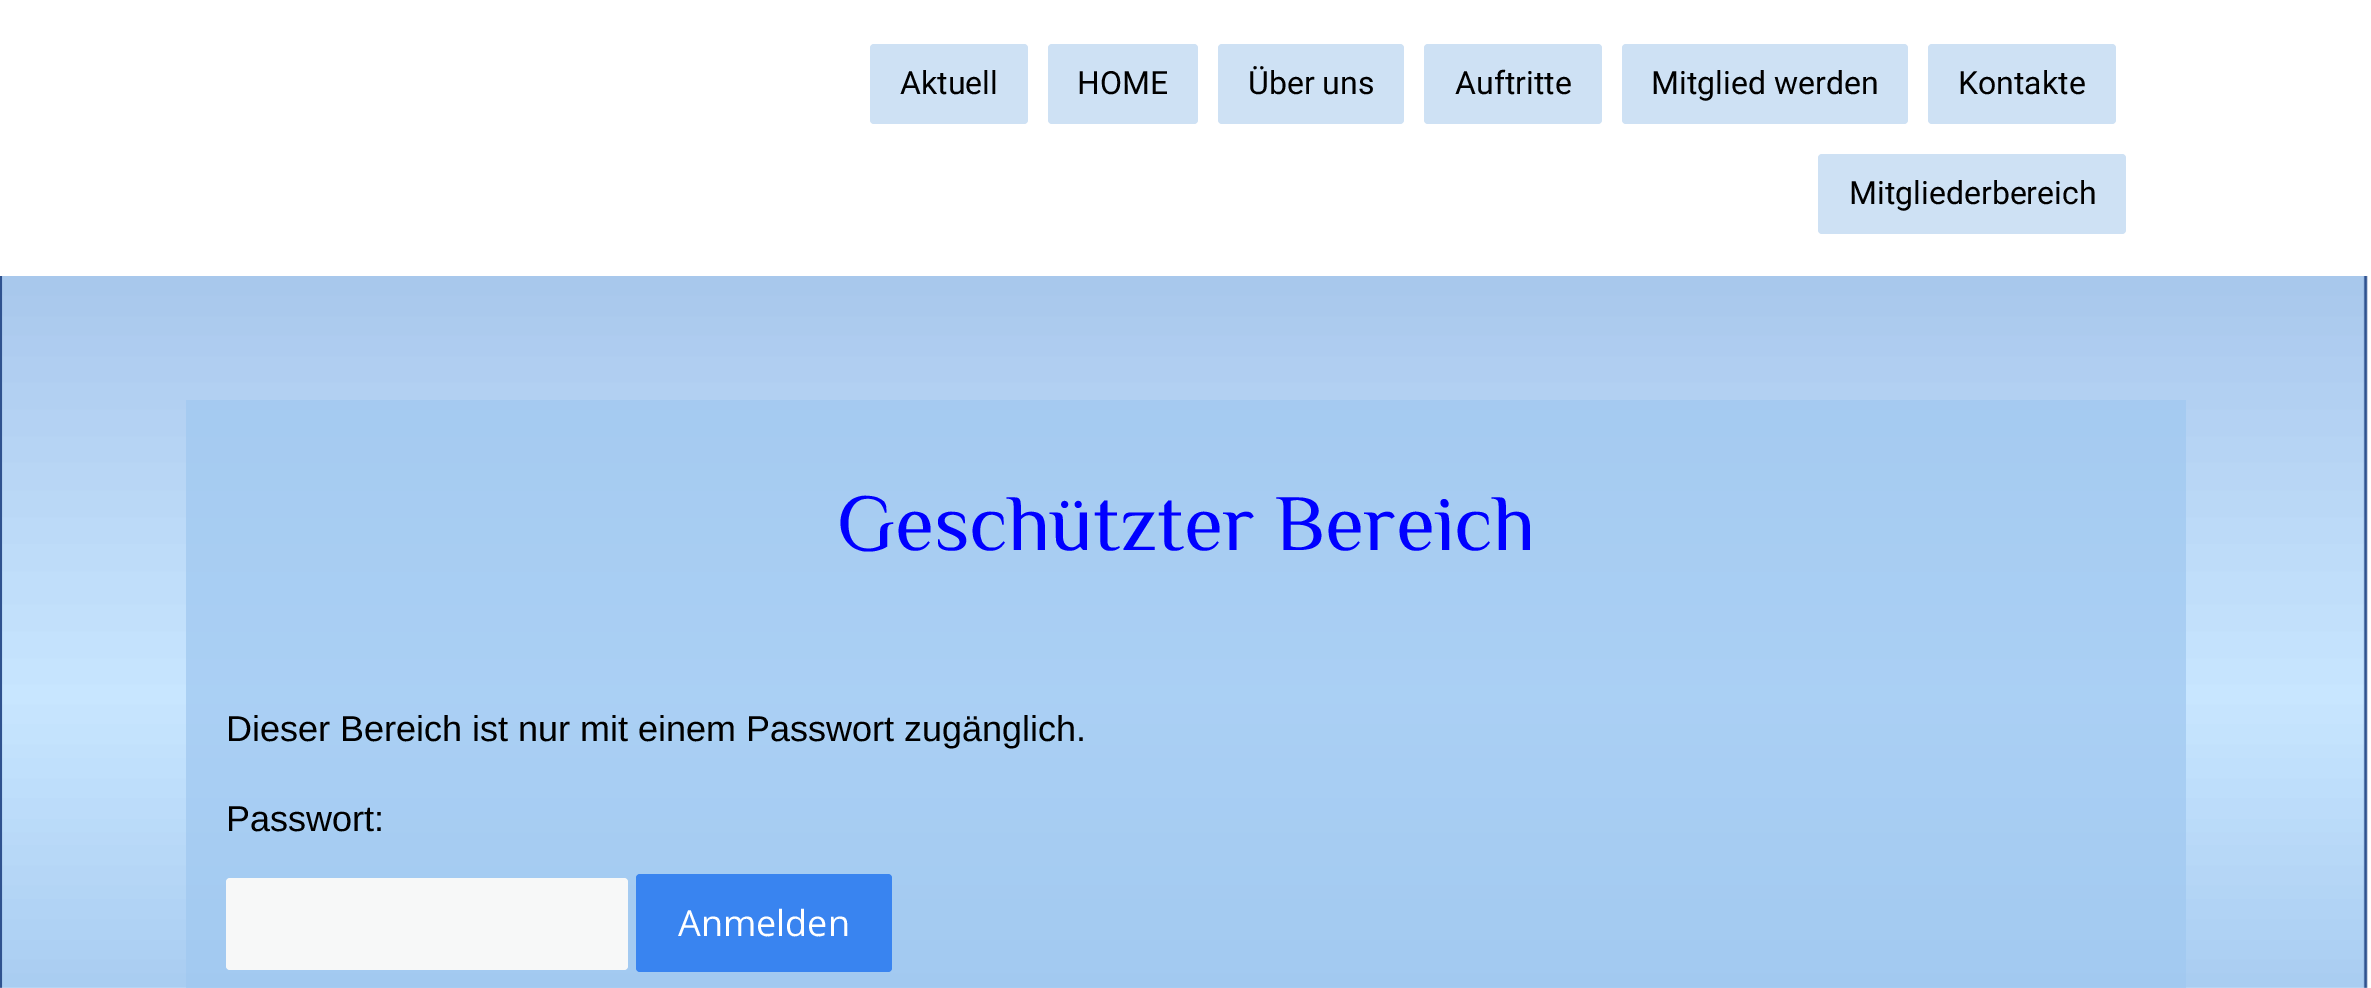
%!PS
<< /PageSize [2371 988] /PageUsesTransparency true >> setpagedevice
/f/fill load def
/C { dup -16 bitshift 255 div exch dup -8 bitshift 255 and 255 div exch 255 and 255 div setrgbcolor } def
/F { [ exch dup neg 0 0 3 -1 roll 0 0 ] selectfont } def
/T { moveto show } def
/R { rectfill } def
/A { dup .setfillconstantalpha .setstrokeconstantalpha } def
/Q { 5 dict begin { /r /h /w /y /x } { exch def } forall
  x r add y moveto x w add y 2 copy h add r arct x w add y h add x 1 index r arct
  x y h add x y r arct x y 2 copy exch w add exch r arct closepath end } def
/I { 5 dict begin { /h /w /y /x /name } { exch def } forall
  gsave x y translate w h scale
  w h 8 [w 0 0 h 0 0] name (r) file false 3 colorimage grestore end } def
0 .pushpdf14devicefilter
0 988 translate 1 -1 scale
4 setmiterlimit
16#FFFFFF C
0 0 2371 988 R
16#CEE1F4 C
870 44 158 80 4 Q f
/Roboto-Regular 32 F
16#000000 C
(Aktuell) 900 94 T
16#CEE1F4 C
1048 44 150 80 4 Q f
16#000000 C
(HOME) 1077 94 T
16#CEE1F4 C
1218 44 186 80 4 Q f
16#000000 C
(Über uns) 1248 94 T
16#CEE1F4 C
1424 44 178 80 4 Q f
16#000000 C
(Auftritte) 1455 94 T
16#CEE1F4 C
1622 44 286 80 4 Q f
16#000000 C
(Mitglied werden) 1651 94 T
16#CEE1F4 C
1928 44 188 80 4 Q f
16#000000 C
(Kontakte) 1958 94 T
16#CEE1F4 C
1818 154 308 80 4 Q f
16#000000 C
(Mitgliederbereich) 1849 204 T
(1.rgb) 0 276 2368 712 I
0.75 A
16#A0C8F0 C
186 400 2000 588 R
/Philosopher-Regular 80 F
1 A
16#0000FF C
(Geschützter Bereich) 837 550 T
/LiberationSans-Regular 36 F
16#000000 C
(Dieser Bereich ist nur mit einem Passwort zugänglich.) 226 741 T
(Passwort:) 226 831 T
16#F7F8F8 C
226 878 402 92 4 Q f
16#3984F0 C
636 874 256 98 4 Q f
/OpenSans-Regular 36 F
16#FFFFFF C
(Anmelden) 678 936 T
.poppdf14devicefilter showpage
